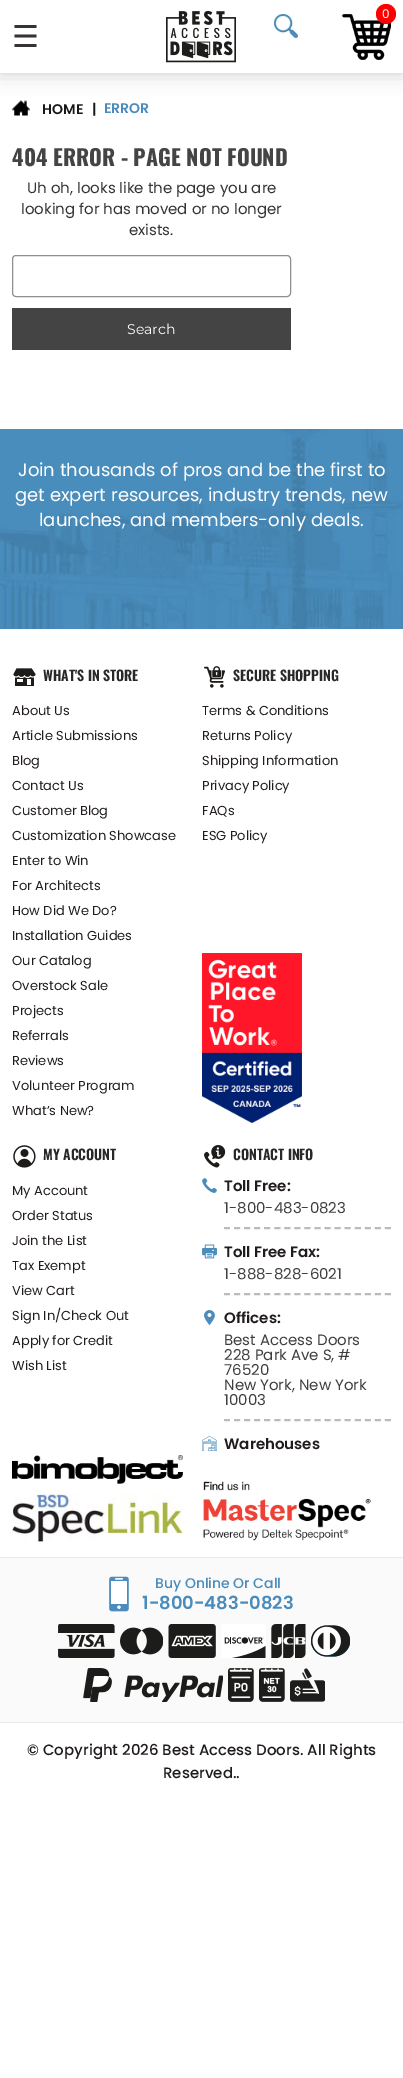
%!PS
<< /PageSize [403 2078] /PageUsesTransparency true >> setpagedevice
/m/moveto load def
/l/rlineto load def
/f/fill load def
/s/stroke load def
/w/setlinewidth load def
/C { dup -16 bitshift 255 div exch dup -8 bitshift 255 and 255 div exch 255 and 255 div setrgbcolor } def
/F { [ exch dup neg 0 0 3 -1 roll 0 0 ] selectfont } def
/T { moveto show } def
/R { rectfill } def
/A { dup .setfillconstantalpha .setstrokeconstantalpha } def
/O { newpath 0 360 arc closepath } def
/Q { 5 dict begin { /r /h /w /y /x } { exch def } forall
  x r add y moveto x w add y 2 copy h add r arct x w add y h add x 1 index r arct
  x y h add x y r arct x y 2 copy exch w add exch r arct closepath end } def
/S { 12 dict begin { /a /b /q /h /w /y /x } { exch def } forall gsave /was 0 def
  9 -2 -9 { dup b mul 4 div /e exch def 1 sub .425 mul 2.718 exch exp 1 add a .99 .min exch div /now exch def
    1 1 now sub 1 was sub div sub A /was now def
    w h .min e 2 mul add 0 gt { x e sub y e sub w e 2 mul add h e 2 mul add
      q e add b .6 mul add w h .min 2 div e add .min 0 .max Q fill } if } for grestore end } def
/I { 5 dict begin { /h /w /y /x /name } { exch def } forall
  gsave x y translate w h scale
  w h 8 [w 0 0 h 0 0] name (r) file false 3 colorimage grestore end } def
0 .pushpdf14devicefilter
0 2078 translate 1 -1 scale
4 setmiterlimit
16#FFFFFF C
0 0 403 2078 R
(4.rgb) 12 100 18 16 I
16#000000 C
0 0 403 73 0 10 .2 S
16#FFFFFF C
0 0 403 73 R
/DejaVuSans-Regular 30 F
16#363334 C
(☰) 12 47 T
(1.rgb) 166 10 70 53 I
(2.rgb) 274 14 24 24 I
(3.rgb) 342 14 49 46 I
16#FF0000 C
386 14 10 O f
/Poppins-Regular 12 F
16#FFFFFF C
(0) 382 18 T
/Poppins-SemiBold 14 F
16#181818 C
(HOME) 42 114 T
(|) 92 114 T
16#498CBC C
(ERROR) 104 113 T
/Oswald-Bold 22 F
16#444444 C
(404 ERROR - PAGE NOT FOUND) 12 166 T
/Poppins-Regular 15 F
16#363334 C
(Uh oh, looks like the page you are) 27 193 T
(looking for has moved or no longer) 21 214 T
(exists.) 129 235 T
16#8F8F8F C
12.5 255.5 278 41 3.5 Q s
16#444444 C
12 308 279 42 R
/Montserrat-Regular 14 F
16#FFFFFF C
(Search) 127 334 T
(5.rgb) 0 429 403 200 I
/Poppins-Regular 18 F
(Join thousands of pros and be the first to) 18 476 T
(get expert resources, industry trends, new) 15 501 T
(launches, and members-only deals.) 39 526 T
(6.rgb) 13 668 23 18 I
/Oswald-SemiBold 14 F
16#282828 C
(WHAT'S IN STORE) 43 681 T
/Poppins-Regular 13 F
16#201C1D C
(About Us) 12 715 T
(Article Submissions) 12 740 T
(Blog) 12 765 T
(Contact Us) 12 790 T
(Customer Blog) 12 815 T
(Customization Showcase) 12 840 T
(Enter to Win) 12 865 T
(For Architects) 12 890 T
(How Did We Do?) 12 915 T
(Installation Guides) 12 940 T
(Our Catalog) 12 965 T
(Overstock Sale) 12 990 T
(Projects) 12 1015 T
(Referrals) 12 1040 T
(Reviews) 12 1065 T
(Volunteer Program) 12 1090 T
(What’s New?) 12 1115 T
(7.rgb) 204 666 21 22 I
/Oswald-SemiBold 14 F
16#282828 C
(SECURE SHOPPING) 233 681 T
/Poppins-Regular 13 F
16#201C1D C
(Terms & Conditions) 202 715 T
(Returns Policy) 202 740 T
(Shipping Information) 202 765 T
(Privacy Policy) 202 790 T
(FAQs) 202 815 T
(ESG Policy) 202 840 T
(8.rgb) 202 953 100 170 I
(9.rgb) 13 1145 23 23 I
/Oswald-SemiBold 14 F
16#282828 C
(MY ACCOUNT) 43 1160 T
/Poppins-Regular 13 F
16#201C1D C
(My Account) 12 1195 T
(Order Status) 12 1220 T
(Join the List) 12 1245 T
(Tax Exempt) 12 1270 T
(View Cart) 12 1295 T
(Sign In/Check Out) 12 1320 T
(Apply for Credit) 12 1345 T
(Wish List) 12 1370 T
(10.rgb) 12 1455 171 29 I
(11.rgb) 12 1494 171 48 I
(12.rgb) 204 1145 22 23 I
/Oswald-SemiBold 14 F
16#282828 C
(CONTACT INFO) 233 1160 T
(13.rgb) 202 1178 15 15 I
16#BCBBBB C
2 w
[6 4.06] 0 setdash
224 1228 m 167 0 l s
/Poppins-SemiBold 15 F
16#201C1D C
(Toll Free:) 224 1191 T
/Poppins-Regular 15 F
16#413E3F C
(1-800-483-0823) 224 1213 T
(14.rgb) 202 1244 15 15 I
16#BCBBBB C
224 1294 m 167 0 l s
/Poppins-SemiBold 15 F
16#201C1D C
(Toll Free Fax:) 224 1257 T
/Poppins-Regular 15 F
16#413E3F C
(1-888-828-6021) 224 1279 T
(15.rgb) 204 1310 11 15 I
16#BCBBBB C
224 1420 m 167 0 l s
/Poppins-SemiBold 15 F
16#201C1D C
(Offices:) 224 1323 T
/Poppins-Regular 15 F
16#413E3F C
(Best Access Doors) 224 1345 T
(228 Park Ave S, #) 224 1360 T
(76520) 224 1375 T
(New York, New York) 224 1390 T
(10003) 224 1405 T
(16.rgb) 202 1436 15 15 I
/Poppins-SemiBold 15 F
16#201C1D C
(Warehouses) 224 1449 T
(17.rgb) 203 1481 168 60 I
16#FAFAFA C
0 1558 403 164 R
16#E9E9E9 C
0 1557 403 1 R
0 1722 403 1 R
(18.rgb) 109 1576 20 36 I
/Poppins-Medium 14 F
16#498CBC C
(Buy Online Or Call) 155 1588 T
/Poppins-SemiBold 18 F
(1-800-483-0823) 142 1609 T
(19.rgb) 58 1624 57 34 I
(20.rgb) 120 1627 43 28 I
(21.rgb) 168 1624 48 34 I
(22.rgb) 221 1624 45 34 I
(23.rgb) 271 1624 35 34 I
(24.rgb) 311 1625 39 32 I
(25.rgb) 83 1668 140 34 I
(26.rgb) 228 1668 26 34 I
(27.rgb) 259 1668 26 34 I
(28.rgb) 290 1668 35 34 I
/Poppins-Medium 15 F
16#201C1D C
(© Copyright 2026 Best Access Doors. All Rights) 27 1755 T
(Reserved..) 163 1778 T
.poppdf14devicefilter showpage
